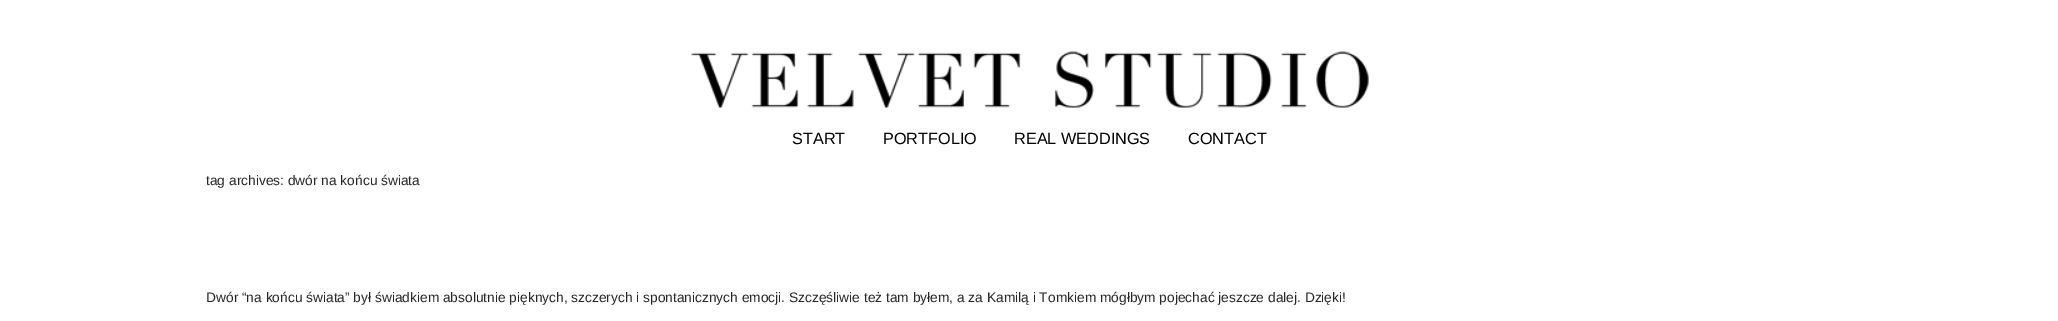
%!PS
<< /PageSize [2058 321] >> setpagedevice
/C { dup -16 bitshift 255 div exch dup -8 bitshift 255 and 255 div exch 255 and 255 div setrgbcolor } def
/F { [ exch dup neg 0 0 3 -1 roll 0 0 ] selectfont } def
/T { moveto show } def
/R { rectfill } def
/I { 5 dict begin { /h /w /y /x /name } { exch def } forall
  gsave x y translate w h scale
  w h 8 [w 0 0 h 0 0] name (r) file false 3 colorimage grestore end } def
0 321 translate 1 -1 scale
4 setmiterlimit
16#FFFFFF C
0 0 2058 321 R
(1.rgb) 691 51 678 57 I
/LiberationSans-Regular 16.25 F
16#000000 C
(START) 792 144 T
(PORTFOLIO) 883 144 T
(REAL WEDDINGS) 1014 144 T
(CONTACT) 1188 144 T
/LiberationSans-Regular 13.75 F
16#262626 C
(tag archives: dwór na końcu świata) 206 185 T
(Dwór “na końcu świata” był świadkiem absolutnie pięknych, szczerych i spontanicznych emocji. Szczęśliwie też tam byłem, a za Kamilą i Tomkiem mógłbym pojechać jeszcze dalej. Dzięki!) 206 302 T
showpage
